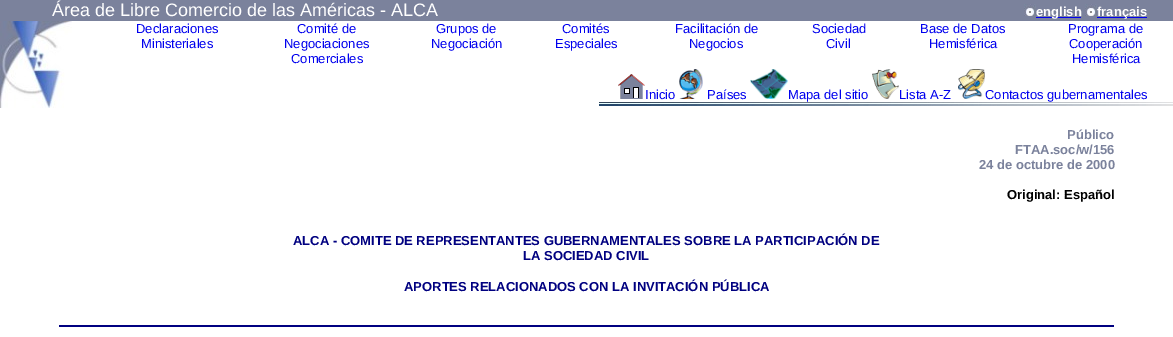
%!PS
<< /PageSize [1173 337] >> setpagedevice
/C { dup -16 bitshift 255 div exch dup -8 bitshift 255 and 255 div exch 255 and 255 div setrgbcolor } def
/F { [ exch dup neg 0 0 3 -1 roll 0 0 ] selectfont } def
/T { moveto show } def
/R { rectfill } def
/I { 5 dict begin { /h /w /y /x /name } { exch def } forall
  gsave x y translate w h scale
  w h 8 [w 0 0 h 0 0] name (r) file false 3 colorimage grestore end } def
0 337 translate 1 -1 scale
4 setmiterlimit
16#FFFFFF C
0 0 1173 337 R
16#7B829C C
0 0 1173 21 R
/LiberationSans-Regular 18 F
16#FFFFFF C
(Área de Libre Comercio de las Américas - ALCA) 52 16 T
(1.rgb) 1024 4 12 12 I
16#0000EE C
1036 17 45 1 R
/LiberationSans-Bold 13 F
16#FFFFFF C
(english) 1036 16 T
(1.rgb) 1085 4 12 12 I
16#0000EE C
1097 17 50 1 R
16#FFFFFF C
(français) 1097 16 T
(2.rgb) 0 21 72 87 I
/LiberationSans-Regular 13 F
16#0000EE C
(Declaraciones) 136 33 T
(Ministeriales) 141 48 T
(Comité de) 297 33 T
(Negociaciones) 284 48 T
(Comerciales) 291 63 T
(Grupos de) 436 33 T
(Negociación) 431 48 T
(Comités) 562 33 T
(Especiales) 555 48 T
(Facilitación de) 675 33 T
(Negocios) 689 48 T
(Sociedad) 812 33 T
(Civil) 826 48 T
(Base de Datos) 920 33 T
(Hemisférica) 929 48 T
(Programa de) 1068 33 T
(Cooperación) 1069 48 T
(Hemisférica) 1072 63 T
(3.rgb) 618 74 27 25 I
(Inicio) 645 99 T
(4.rgb) 679 69 24 30 I
(Países) 707 99 T
(5.rgb) 750 69 38 30 I
(Mapa del sitio) 788 99 T
(6.rgb) 872 69 27 30 I
(Lista A-Z) 899 99 T
(7.rgb) 958 69 27 30 I
(Contactos gubernamentales) 985 99 T
(8.rgb) 599 102 574 4 I
/LiberationSans-Bold 13 F
16#7B829C C
(Público) 1067 139 T
(FTAA.soc/w/156) 1015 154 T
(24 de octubre de 2000) 979 169 T
16#000000 C
(Original: Español) 1007 199 T
16#000080 C
(ALCA - COMITE DE REPRESENTANTES GUBERNAMENTALES SOBRE LA PARTICIPACIÓN DE) 293 245 T
(LA SOCIEDAD CIVIL) 523 260 T
(APORTES RELACIONADOS CON LA INVITACIÓN PÚBLICA) 404 291 T
59 325 1055 2 R
showpage
